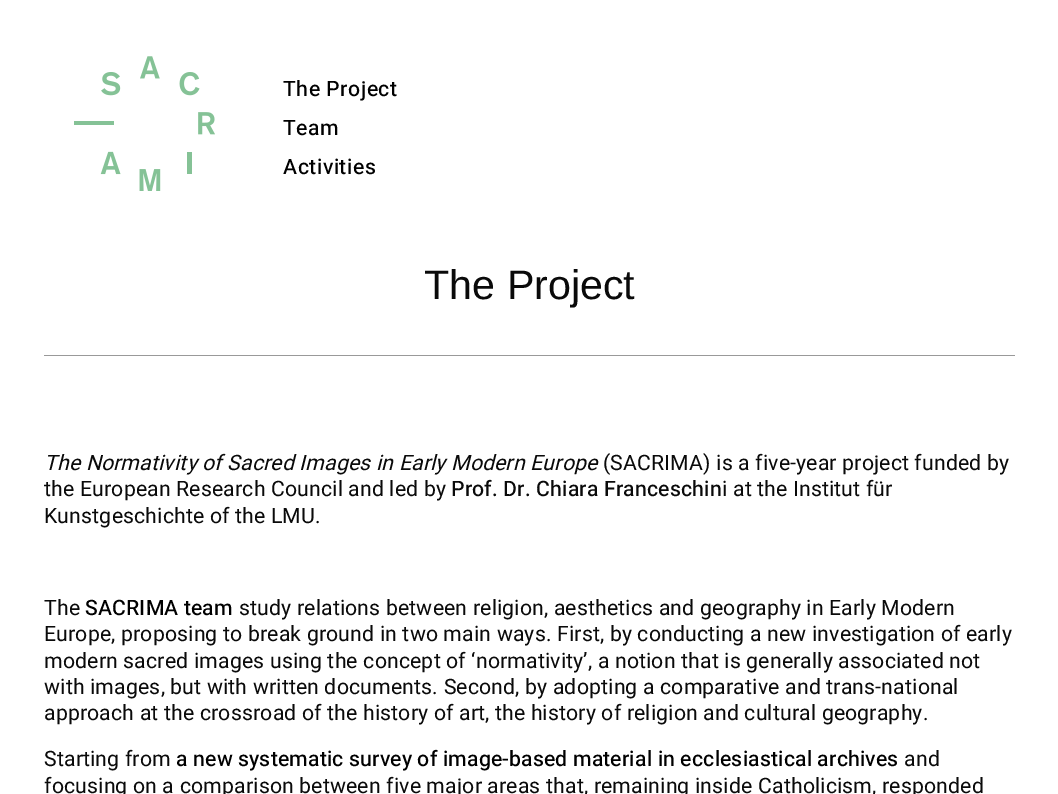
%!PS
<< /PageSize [1058 794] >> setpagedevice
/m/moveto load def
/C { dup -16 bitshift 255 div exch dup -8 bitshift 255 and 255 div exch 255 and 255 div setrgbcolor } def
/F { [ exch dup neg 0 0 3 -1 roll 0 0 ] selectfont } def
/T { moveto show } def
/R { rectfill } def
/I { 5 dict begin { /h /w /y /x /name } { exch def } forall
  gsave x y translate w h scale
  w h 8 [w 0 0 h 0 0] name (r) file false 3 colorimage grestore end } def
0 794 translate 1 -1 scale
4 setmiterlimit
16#FFFFFF C
0 0 1058 794 R
(1.rgb) 74 56 141 135 I
/Heebo-Medium 21.25 F
16#000000 C
283 96 m .5 0 (The Project) ashow
283 135 m .5 0 (Team) ashow
283 174 m .5 0 (Activities) ashow
16#999999 C
44 355 971 1 R
/LiberationSans-Regular 41.25 F
16#0A0A0A C
(The Project) 424 299 T
/Heebo-Italic 21.25 F
44 470 m .15 0 (The Normativity of Sacred Images in Early Modern Europe) ashow
/Heebo-Regular 21.25 F
603 470 m .15 0 (\(SACRIMA\) is a five-year project funded by) ashow
44 496 m .15 0 (the European Research Council and led by) ashow
/Heebo-Medium 21.25 F
451 496 m .15 0 (Prof. Dr. Chiara Franceschin) ashow
/Heebo-Regular 21.25 F
722 496 m .15 0 (i at the Institut für) ashow
44 523 m .15 0 (Kunstgeschichte of the LMU.) ashow
44 615 m .15 0 (The) ashow
/Heebo-Medium 21.25 F
16#000000 C
85 615 m .15 0 (SACRIMA team) ashow
/Heebo-Regular 21.25 F
16#0A0A0A C
239 615 m .15 0 (study relations between religion, aesthetics and geography in Early Modern) ashow
44 641 m .15 0 (Europe, proposing to break ground in two main ways. First, by conducting a new investigation of early) ashow
44 668 m .15 0 (modern sacred images using the concept of ‘normativity’, a notion that is generally associated not) ashow
44 694 m .15 0 (with images, but with written documents. Second, by adopting a comparative and trans-national) ashow
44 720 m .15 0 (approach at the crossroad of the history of art, the history of religion and cultural geography.) ashow
44 766 m .15 0 (Starting from) ashow
/Heebo-Medium 21.25 F
16#000000 C
176 766 m .15 0 (a new systematic survey of image-based material in ecclesiastical archives) ashow
/Heebo-Regular 21.25 F
16#0A0A0A C
904 766 m .15 0 (and) ashow
44 793 m .15 0 (focusing on a comparison between five major areas that, remaining inside Catholicism, responded) ashow
showpage
